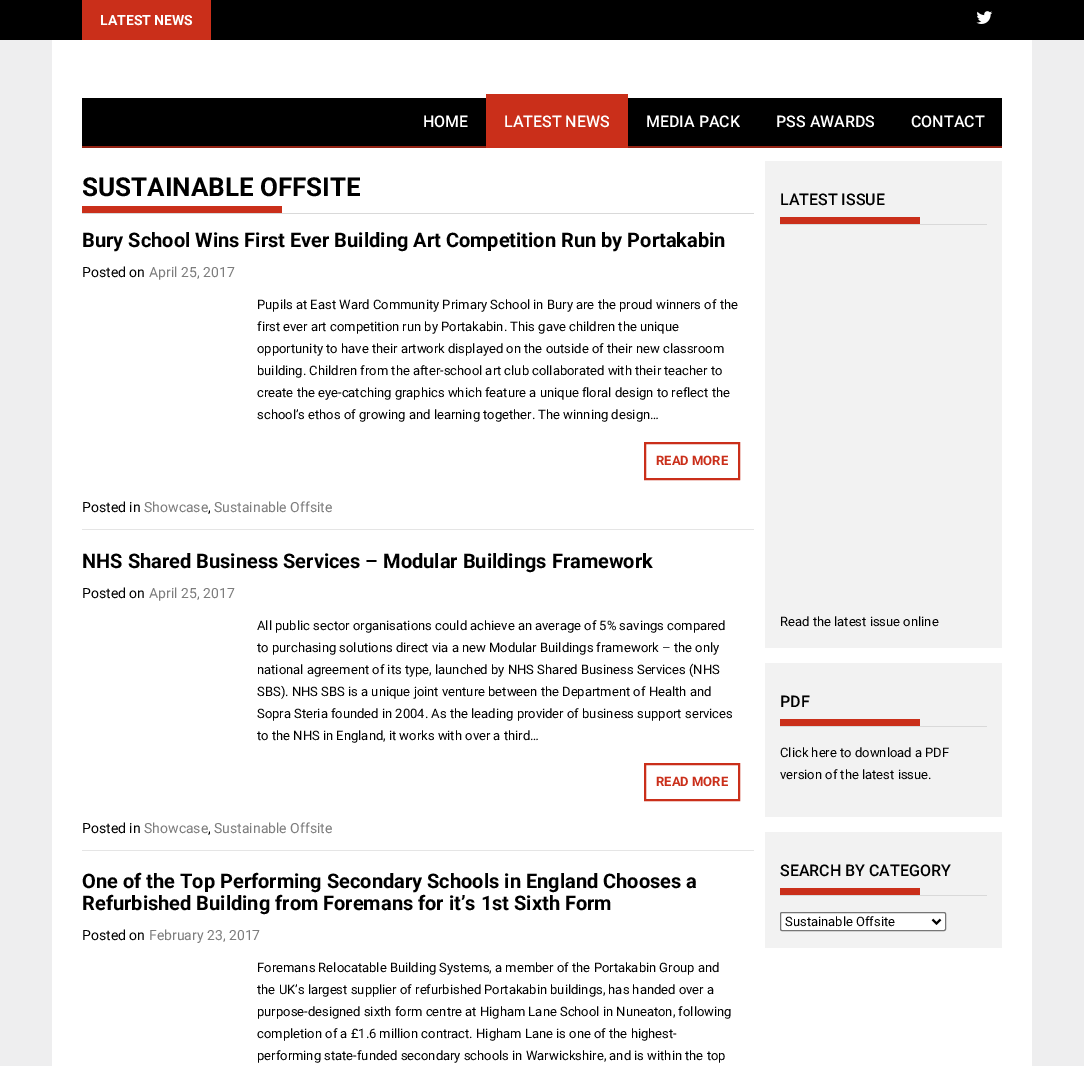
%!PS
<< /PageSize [1084 1066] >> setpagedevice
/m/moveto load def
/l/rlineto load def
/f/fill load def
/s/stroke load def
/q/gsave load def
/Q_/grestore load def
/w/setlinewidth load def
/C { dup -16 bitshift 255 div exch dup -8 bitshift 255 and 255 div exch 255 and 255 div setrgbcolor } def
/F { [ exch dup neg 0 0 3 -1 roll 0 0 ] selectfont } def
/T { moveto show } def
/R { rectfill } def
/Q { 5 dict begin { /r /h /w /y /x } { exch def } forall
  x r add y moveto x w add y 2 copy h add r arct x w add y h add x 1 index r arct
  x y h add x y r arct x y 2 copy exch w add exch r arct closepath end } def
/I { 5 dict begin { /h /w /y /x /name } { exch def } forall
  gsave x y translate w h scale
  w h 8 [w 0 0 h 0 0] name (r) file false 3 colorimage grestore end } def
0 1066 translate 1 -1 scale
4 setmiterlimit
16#EEEEEF C
0 0 1084 1066 R
16#000000 C
0 0 1084 40 R
16#CA2F1A C
82 0 129 40 R
/Roboto-Bold 14 F
16#FFFFFF C
(LATEST NEWS) 100 25 T
(1.rgb) 976 11 17 13 I
52 40 980 1026 R
16#000000 C
82 98 404 48 R
16#932213 C
82 146 404 2 R
/Roboto-Medium 16 F
16#FFFFFF C
(HOME) 423 127 T
16#CA2F1A C
486 94 142 54 R
16#FFFFFF C
(LATEST NEWS) 504 127 T
16#000000 C
628 98 374 48 R
16#932213 C
628 146 374 2 R
16#FFFFFF C
(MEDIA PACK) 646 127 T
(PSS AWARDS) 776 127 T
(CONTACT) 911 127 T
16#D9D9D9 C
82 213 672 1 R
/Roboto-Bold 26 F
16#000000 C
(SUSTAINABLE OFFSITE) 82 196 T
16#CA2F1A C
82 206 200 7 R
16#E5E5E5 C
82 529 672 1 R
/Roboto-Bold 20 F
16#000000 C
(Bury School Wins First Ever Building Art Competition Run by Portakabin) 82 247 T
/Roboto-Regular 14 F
(Posted on) 82 277 T
16#7C7C7C C
(April 25, 2017) 149 277 T
/Roboto-Regular 13 F
16#000000 C
(Pupils at East Ward Community Primary School in Bury are the proud winners of the) 257 309 T
(first ever art competition run by Portakabin. This gave children the unique) 257 331 T
(opportunity to have their artwork displayed on the outside of their new classroom) 257 353 T
(building. Children from the after-school art club collaborated with their teacher to) 257 375 T
(create the eye-catching graphics which feature a unique floral design to reflect the) 257 397 T
(school’s ethos of growing and learning together. The winning design…) 257 419 T
16#CA2F1A C
2 w
645 443 94 36 rectstroke
/Roboto-Bold 13 F
(READ MORE) 656 465 T
/Roboto-Regular 14 F
16#000000 C
(Posted in) 82 512 T
16#7C7C7C C
(Showcase) 144 512 T
16#000000 C
(,) 208 512 T
16#7C7C7C C
(Sustainable Offsite) 214 512 T
16#E5E5E5 C
82 850 672 1 R
/Roboto-Bold 20 F
16#000000 C
(NHS Shared Business Services – Modular Buildings Framework) 82 568 T
/Roboto-Regular 14 F
(Posted on) 82 598 T
16#7C7C7C C
(April 25, 2017) 149 598 T
/Roboto-Regular 13 F
16#000000 C
(All public sector organisations could achieve an average of 5% savings compared) 257 630 T
(to purchasing solutions direct via a new Modular Buildings framework – the only) 257 652 T
(national agreement of its type, launched by NHS Shared Business Services \(NHS) 257 674 T
(SBS\). NHS SBS is a unique joint venture between the Department of Health and) 257 696 T
(Sopra Steria founded in 2004. As the leading provider of business support services) 257 718 T
(to the NHS in England, it works with over a third…) 257 740 T
16#CA2F1A C
645 764 94 36 rectstroke
/Roboto-Bold 13 F
(READ MORE) 656 786 T
/Roboto-Regular 14 F
16#000000 C
(Posted in) 82 833 T
16#7C7C7C C
(Showcase) 144 833 T
16#000000 C
(,) 208 833 T
16#7C7C7C C
(Sustainable Offsite) 214 833 T
/Roboto-Bold 20 F
16#000000 C
(One of the Top Performing Secondary Schools in England Chooses a) 82 888 T
(Refurbished Building from Foremans for it’s 1st Sixth Form) 82 910 T
/Roboto-Regular 14 F
(Posted on) 82 940 T
16#7C7C7C C
(February 23, 2017) 149 940 T
/Roboto-Regular 13 F
16#000000 C
(Foremans Relocatable Building Systems, a member of the Portakabin Group and) 257 972 T
(the UK’s largest supplier of refurbished Portakabin buildings, has handed over a) 257 994 T
(purpose-designed sixth form centre at Higham Lane School in Nuneaton, following) 257 1016 T
(completion of a £1.6 million contract. Higham Lane is one of the highest-) 257 1038 T
(performing state-funded secondary schools in Warwickshire, and is within the top) 257 1060 T
16#F2F2F2 C
765 161 237 487 R
16#D9D9D9 C
780 224 207 1 R
/Roboto-Medium 16 F
16#000000 C
(LATEST ISSUE) 780 205 T
16#CA2F1A C
780 217 140 7 R
/Roboto-Regular 13 F
16#000000 C
(Read the latest issue online) 780 626 T
16#F2F2F2 C
765 663 237 154 R
16#D9D9D9 C
780 726 207 1 R
/Roboto-Medium 16 F
16#000000 C
(PDF) 780 707 T
16#CA2F1A C
780 719 140 7 R
/Roboto-Regular 13 F
16#000000 C
(Click here to download a PDF) 780 757 T
(version of the latest issue.) 780 779 T
16#F2F2F2 C
765 832 237 116 R
16#D9D9D9 C
780 895 207 1 R
/Roboto-Medium 16 F
16#000000 C
(SEARCH BY CATEGORY) 780 876 T
16#CA2F1A C
780 888 140 7 R
16#FFFFFF C
780.5 912.5 165 18 1.5 Q q f Q_
16#767676 C
1 w
s
16#000000 C
2 w
932.5 919.5 m 4 4 l 4 -4 l s
/Roboto-Regular 13 F
(Sustainable Offsite) 785 926 T
showpage
